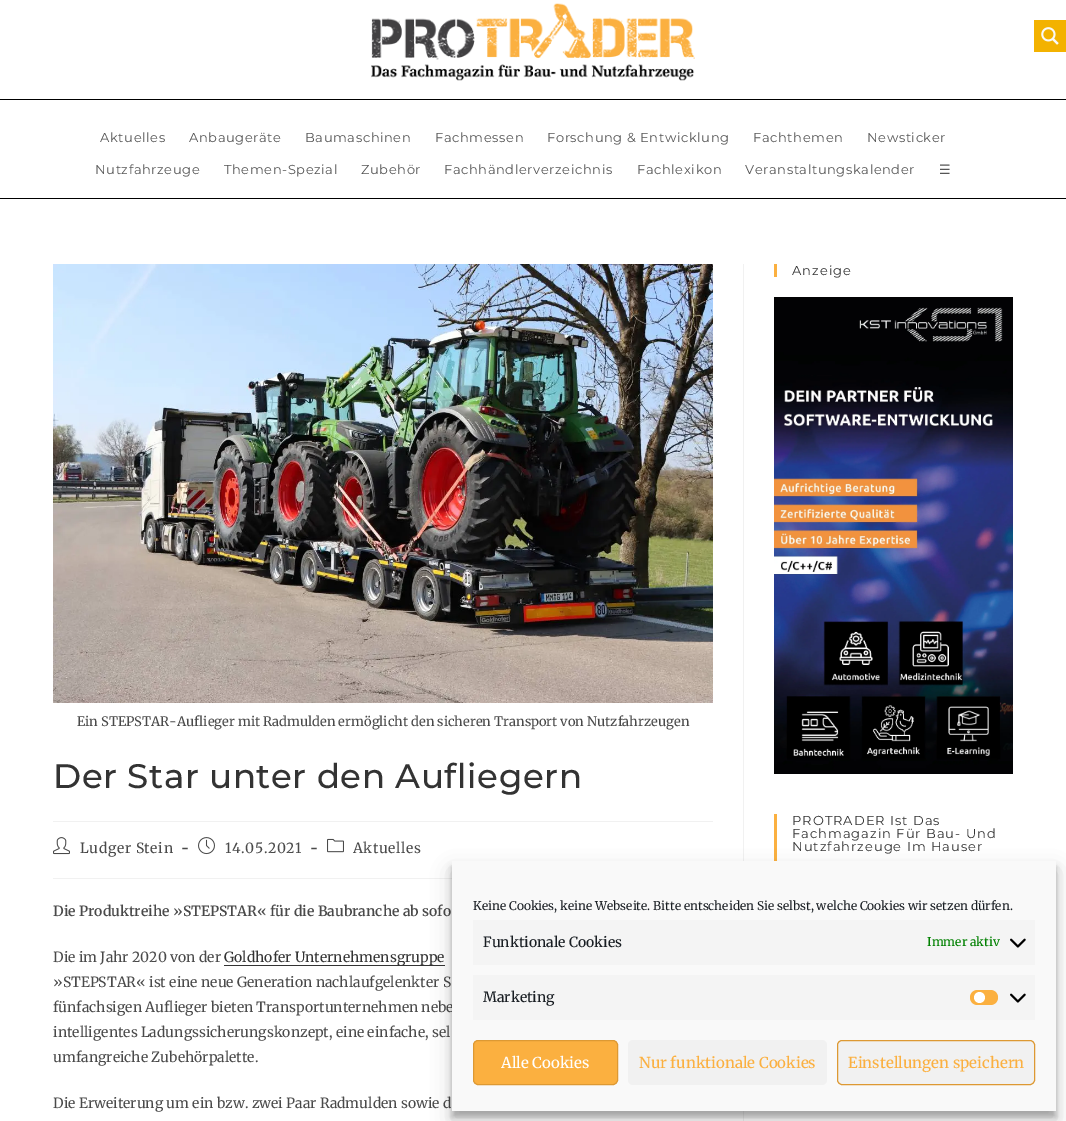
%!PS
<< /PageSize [1066 1121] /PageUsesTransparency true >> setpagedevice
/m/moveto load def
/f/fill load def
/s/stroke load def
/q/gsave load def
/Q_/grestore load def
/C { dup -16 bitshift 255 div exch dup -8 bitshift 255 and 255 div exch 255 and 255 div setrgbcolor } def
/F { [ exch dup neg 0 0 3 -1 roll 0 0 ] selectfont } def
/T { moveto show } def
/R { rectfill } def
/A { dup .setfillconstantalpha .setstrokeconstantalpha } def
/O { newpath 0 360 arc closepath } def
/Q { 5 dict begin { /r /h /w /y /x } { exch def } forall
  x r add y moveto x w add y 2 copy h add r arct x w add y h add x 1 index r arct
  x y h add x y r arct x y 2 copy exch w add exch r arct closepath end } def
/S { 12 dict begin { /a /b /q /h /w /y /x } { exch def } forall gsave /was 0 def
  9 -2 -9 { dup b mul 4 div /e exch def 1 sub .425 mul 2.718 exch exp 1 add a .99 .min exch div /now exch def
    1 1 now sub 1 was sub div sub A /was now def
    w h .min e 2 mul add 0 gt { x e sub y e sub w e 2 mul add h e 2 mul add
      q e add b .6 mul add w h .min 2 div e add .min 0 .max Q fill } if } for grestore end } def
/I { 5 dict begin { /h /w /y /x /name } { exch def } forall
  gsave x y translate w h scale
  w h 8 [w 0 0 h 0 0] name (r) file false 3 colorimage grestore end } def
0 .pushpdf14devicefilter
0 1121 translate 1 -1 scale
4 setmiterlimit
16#FFFFFF C
0 0 1066 1121 R
(1.rgb) 371 3 324 78 I
16#F3B200 C
1034 20 32 32 R
(2.rgb) 1041 27 18 18 I
16#000000 C
0 99 1066 1 R
/Montserrat-Regular 13 F
16#555555 C
100 142 m .6 0 (Aktuelles) ashow
189 142 m .6 0 (Anbaugeräte) ashow
305 142 m .6 0 (Baumaschinen) ashow
435 142 m .6 0 (Fachmessen) ashow
547 142 m .6 0 (Forschung & Entwicklung) ashow
753 142 m .6 0 (Fachthemen) ashow
867 142 m .6 0 (Newsticker) ashow
95 174 m .6 0 (Nutzfahrzeuge) ashow
224 174 m .6 0 (Themen-Spezial) ashow
361 174 m .6 0 (Zubehör) ashow
444 174 m .6 0 (Fachhändlerverzeichnis) ashow
637 174 m .6 0 (Fachlexikon) ashow
745 174 m .6 0 (Veranstaltungskalender) ashow
/DejaVuSans-Regular 13 F
939 174 m .6 0 (☰) ashow
16#000000 C
0 198 1066 1 R
16#FBB040 C
774 264 3 13 R
/Montserrat-Regular 13 F
16#333333 C
792 275 m 1 0 (Anzeige) ashow
(3.rgb) 774 297 239 477 I
16#FBB040 C
774 814 3 52 R
16#333333 C
792 825 m 1 0 (PROTRADER Ist Das) ashow
792 838 m 1 0 (Fachmagazin Für Bau- Und) ashow
792 851 m 1 0 (Nutzfahrzeuge Im Hauser) ashow
16#F1F1F1 C
743 264 1 857 R
(4.rgb) 53 264 660 439 I
/Merriweather-Regular 13 F
16#4A4A4A C
(Ein STEPSTAR-Auflieger mit Radmulden ermöglicht den sicheren Transport von Nutzfahrzeugen) 77 726 T
16#F1F1F1 C
53 821 660 1 R
/Montserrat-Medium 34 F
16#333333 C
53 788 m .6 0 (Der Star unter den Aufliegern) ashow
16#F1F1F1 C
53 878 399 1 R
(5.rgb) 53 837 17 18 I
/Merriweather-Regular 14 F
16#4A4A4A C
80 853 m .6 0 (Ludger Stein) ashow
/Merriweather-Bold 14 F
181 853 m .6 0 (-) ashow
(6.rgb) 198 837 17 18 I
/Merriweather-Regular 14 F
225 853 m .6 0 (14.05.2021) ashow
/Merriweather-Bold 14 F
310 853 m .6 0 (-) ashow
(7.rgb) 327 838 17 15 I
/Merriweather-Regular 14 F
353 853 m .6 0 (Aktuelles) ashow
/Merriweather-SemiBold 14 F
(Die Produktreihe »STEPSTAR« für die Baubranche ab sofo) 53 916 T
/Merriweather-Regular 14 F
(Die im Jahr 2020 von der) 53 962 T
16#333333 C
224 965 221 1 R
(Goldhofer Unternehmensgruppe) 224 962 T
16#4A4A4A C
(»STEPSTAR« ist eine neue Generation nachlaufgelenkter S) 53 987 T
(fünfachsigen Auflieger bieten Transportunternehmen nebe) 53 1012 T
(intelligentes Ladungssicherungskonzept, eine einfache, sel) 53 1037 T
(umfangreiche Zubehörpalette.) 53 1062 T
(Die Erweiterung um ein bzw. zwei Paar Radmulden sowie d) 53 1108 T
16#000000 C
452 867 604 250 0 3 .23 S
452 871 604 250 0 10 .19 S
16#F9F9F9 C
452 861 604 250 R
/Merriweather-Regular 12 F
16#191E23 C
(Keine Cookies, keine Webseite. Bitte entscheiden Sie selbst, welche Cookies wir setzen dürfen.) 473 910 T
16#F4F4F4 C
473 920 562 45 R
/Merriweather-Medium 14 F
16#191E23 C
(Funktionale Cookies) 483 947 T
/Merriweather-Medium 12 F
16#008000 C
(Immer aktiv) 927 946 T
(8.rgb) 1010 938 16 10 I
16#F4F4F4 C
473 975 562 45 R
/Merriweather-Medium 14 F
16#191E23 C
(Marketing) 483 1002 T
16#FBB040 C
970 990 28 15 7.5 Q f
16#FFFFFF C
979.5 997.5 5.5 O f
(8.rgb) 1010 993 16 10 I
16#FBB040 C
473.5 1040.5 144 44 4.5 Q q f Q_
16#DD9933 C
s
/Merriweather-Medium 15 F
16#FFFFFF C
(Alle Cookies) 501 1068 T
16#F1F1F1 C
628 1040 199 45 5 Q f
16#FBB040 C
(Nur funktionale Cookies) 639 1068 T
16#F1F1F1 C
837.5 1040.5 197 44 4.5 Q q f Q_
16#DD9933 C
s
16#FBB040 C
(Einstellungen speichern) 848 1068 T
.poppdf14devicefilter showpage
